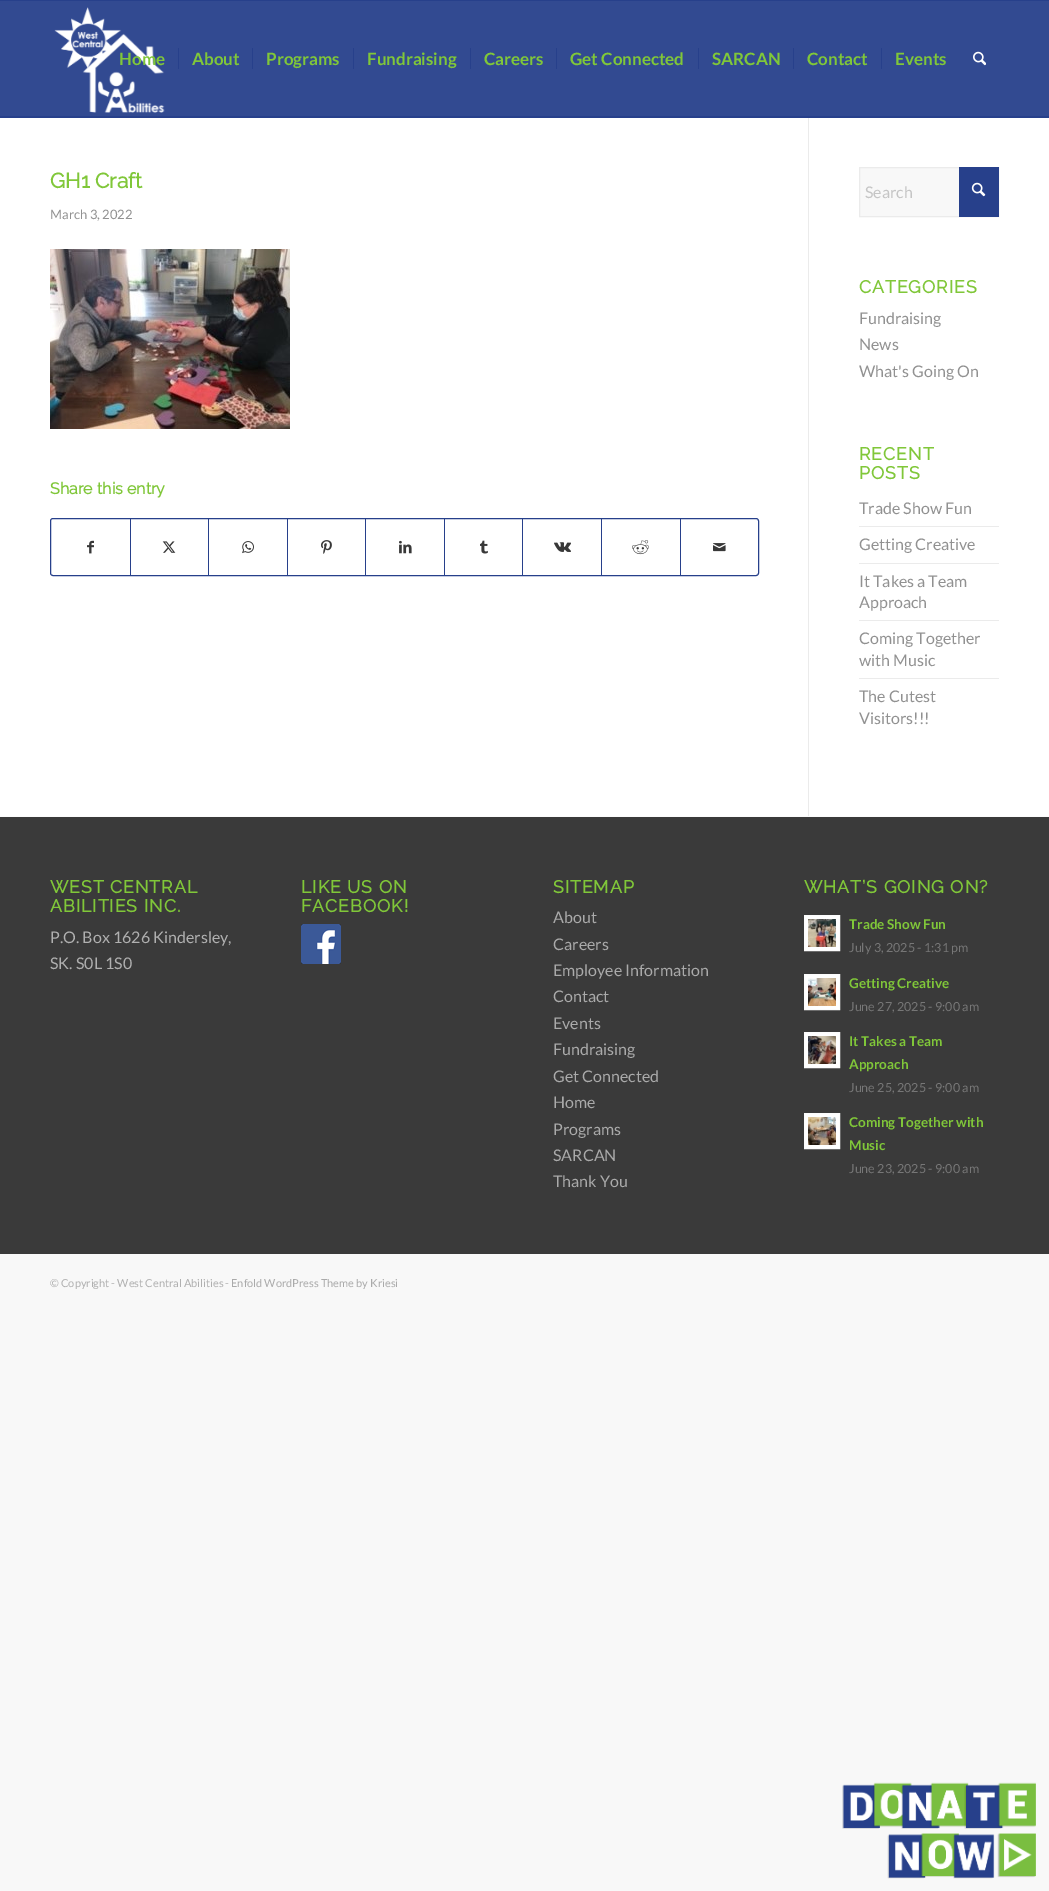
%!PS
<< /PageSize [1049 1891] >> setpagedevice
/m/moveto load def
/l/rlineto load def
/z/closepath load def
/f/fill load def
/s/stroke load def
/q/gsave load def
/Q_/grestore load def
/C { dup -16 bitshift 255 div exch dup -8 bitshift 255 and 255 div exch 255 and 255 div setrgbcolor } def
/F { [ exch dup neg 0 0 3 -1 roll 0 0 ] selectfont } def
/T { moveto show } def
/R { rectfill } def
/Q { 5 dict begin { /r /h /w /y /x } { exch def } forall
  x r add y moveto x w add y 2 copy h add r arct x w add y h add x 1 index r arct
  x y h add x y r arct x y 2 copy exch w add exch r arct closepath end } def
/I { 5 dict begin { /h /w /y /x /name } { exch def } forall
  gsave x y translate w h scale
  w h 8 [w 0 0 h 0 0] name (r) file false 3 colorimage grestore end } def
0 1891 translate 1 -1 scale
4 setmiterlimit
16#F8F8F8 C
0 0 1049 1891 R
16#FFFFFF C
0 118 1049 698 R
16#324A91 C
0 1 1049 115 R
16#27408B C
0 0 1049 1 R
16#EBEBEB C
808 117 1 699 R
16#27408B C
0 117 1049 1 R
(1.rgb) 54 7 111 106 I
/Lato-Bold 17 F
16#80C739 C
(Home) 119 65 T
(About) 192 65 T
16#27408B C
178 48 1 21 R
16#80C739 C
(Programs) 266 65 T
16#27408B C
252 48 1 21 R
16#80C739 C
(Fundraising) 367 65 T
16#27408B C
353 48 1 21 R
16#80C739 C
(Careers) 484 65 T
16#27408B C
470 48 1 21 R
16#80C739 C
(Get Connected) 570 65 T
16#27408B C
556 48 1 21 R
16#80C739 C
(SARCAN) 712 65 T
16#27408B C
698 48 1 21 R
16#80C739 C
(Contact) 807 65 T
16#27408B C
793 48 1 21 R
16#80C739 C
(Events) 895 65 T
16#27408B C
881 48 1 21 R
(2.rgb) 973 51 13 15 I
0 116 1049 1 R
/Raleway-Bold 21 F
16#80C739 C
(GH1 Craft) 50 188 T
/Lato-Regular 13 F
16#919191 C
(March 3, 2022) 50 219 T
(3.rgb) 50 249 240 180 I
/Raleway-Bold 16 F
16#80C739 C
(Share this entry) 50 494 T
16#27408B C
50.5 518.5 708 57 2.5 Q s
(4.rgb) 87 540 7 14 I
130 519 1 56 R
(5.rgb) 162 541 14 12 I
208 519 1 56 R
(6.rgb) 242 541 12 13 I
287 519 1 56 R
(7.rgb) 321 540 11 14 I
365 519 1 56 R
(8.rgb) 399 540 13 14 I
444 519 1 56 R
(9.rgb) 480 540 8 14 I
522 519 1 56 R
(10.rgb) 554 542 17 10 I
601 519 1 56 R
(11.rgb) 632 540 17 15 I
680 519 1 56 R
(12.rgb) 713 543 13 9 I
16#F8F8F8 C
860 168 99 48 R
16#EBEBEB C
859.5 167.5 139 49 rectstroke
16#27408B C
959 167 40 50 R
/Lato-Regular 16 F
16#C5C5C5 C
(Search) 865 198 T
(13.rgb) 971 182 15 15 I
/Raleway-Bold 17.6 F
16#80C739 C
859 293 m 1 0 (CATEGORIES) ashow
/Lato-Regular 16 F
16#919191 C
(Fundraising) 859 324 T
(News) 859 350 T
(What's Going On) 859 377 T
/Raleway-Bold 17.6 F
16#80C739 C
859 460 m 1 0 (RECENT) ashow
859 479 m 1 0 (POSTS) ashow
/Lato-Regular 16 F
16#919191 C
(Trade Show Fun) 859 514 T
16#EBEBEB C
859 526 140 1 R
16#919191 C
(Getting Creative) 859 550 T
16#EBEBEB C
859 563 140 1 R
16#919191 C
(It Takes a Team) 859 587 T
(Approach) 859 608 T
16#EBEBEB C
859 620 140 1 R
16#919191 C
(Coming Together) 859 644 T
(with Music) 859 666 T
16#EBEBEB C
859 678 140 1 R
16#919191 C
(The Cutest) 859 702 T
(Visitors!!!) 859 724 T
16#3A3A3A C
0 817 1049 437 R
16#FCFCFC C
0 816 1049 1 R
/Raleway-Bold 17.6 F
16#80C739 C
50 893 m 1 0 (WEST CENTRAL) ashow
50 912 m 1 0 (ABILITIES INC.) ashow
/Lato-Regular 16 F
16#B0B0B0 C
(P.O. Box 1626 Kindersley,) 50 943 T
(SK. S0L 1S0) 50 969 T
/Raleway-Bold 17.6 F
16#80C739 C
301 893 m 1 0 (LIKE US ON) ashow
301 912 m 1 0 (FACEBOOK!) ashow
(14.rgb) 301 924 40 40 I
553 893 m 1 0 (SITEMAP) ashow
/Lato-Regular 16 F
16#AAAAAA C
(About) 553 923 T
(Careers) 553 950 T
(Employee Information) 553 976 T
(Contact) 553 1002 T
(Events) 553 1029 T
(Fundraising) 553 1055 T
(Get Connected) 553 1082 T
(Home) 553 1108 T
(Programs) 553 1135 T
(SARCAN) 553 1161 T
(Thank You) 553 1187 T
/Raleway-Bold 17.6 F
16#80C739 C
804 893 m 1 0 (WHAT’S GOING ON?) ashow
16#FFFFFF C
804.5 915.5 m 35 0 l 0 35 l -35 0 l z q f Q_
16#FCFCFC C
s
(15.rgb) 808 919 28 28 I
/Lato-Bold 13.5 F
16#80C739 C
(Trade Show Fun) 849 929 T
/Lato-Regular 12.5 F
16#777777 C
(July 3, 2025 - 1:31 pm) 849 952 T
16#FFFFFF C
804.5 974.5 m 35 0 l 0 35 l -35 0 l z q f Q_
16#FCFCFC C
s
(16.rgb) 808 978 28 28 I
/Lato-Bold 13.5 F
16#80C739 C
(Getting Creative) 849 988 T
/Lato-Regular 12.5 F
16#777777 C
(June 27, 2025 - 9:00 am) 849 1011 T
16#FFFFFF C
804.5 1032.5 m 35 0 l 0 35 l -35 0 l z q f Q_
16#FCFCFC C
s
(17.rgb) 808 1036 28 28 I
/Lato-Bold 13.5 F
16#80C739 C
(It Takes a Team) 849 1046 T
(Approach) 849 1069 T
/Lato-Regular 12.5 F
16#777777 C
(June 25, 2025 - 9:00 am) 849 1092 T
16#FFFFFF C
804.5 1113.5 m 35 0 l 0 35 l -35 0 l z q f Q_
16#FCFCFC C
s
(18.rgb) 808 1117 28 28 I
/Lato-Bold 13.5 F
16#80C739 C
(Coming Together with) 849 1127 T
(Music) 849 1150 T
/Lato-Regular 12.5 F
16#777777 C
(June 23, 2025 - 9:00 am) 849 1173 T
/Lato-Regular 11 F
16#B0B0B0 C
(© Copyright - West Central Abilities -) 50 1287 T
16#AAAAAA C
(Enfold WordPress Theme by Kriesi) 231 1287 T
(19.rgb) 842 1782 194 97 I
showpage
